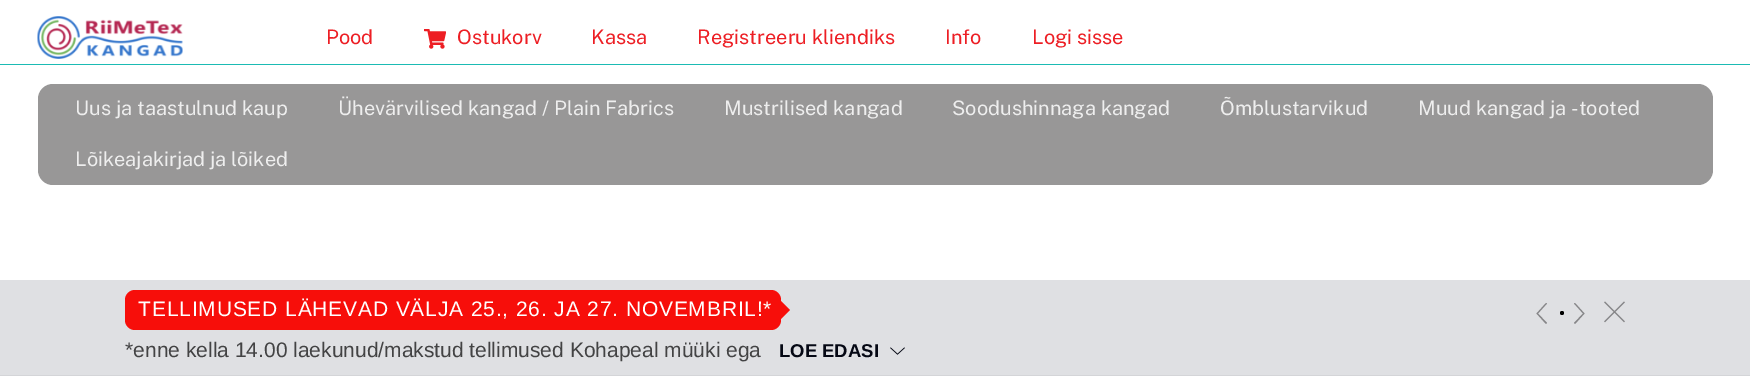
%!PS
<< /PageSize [1750 376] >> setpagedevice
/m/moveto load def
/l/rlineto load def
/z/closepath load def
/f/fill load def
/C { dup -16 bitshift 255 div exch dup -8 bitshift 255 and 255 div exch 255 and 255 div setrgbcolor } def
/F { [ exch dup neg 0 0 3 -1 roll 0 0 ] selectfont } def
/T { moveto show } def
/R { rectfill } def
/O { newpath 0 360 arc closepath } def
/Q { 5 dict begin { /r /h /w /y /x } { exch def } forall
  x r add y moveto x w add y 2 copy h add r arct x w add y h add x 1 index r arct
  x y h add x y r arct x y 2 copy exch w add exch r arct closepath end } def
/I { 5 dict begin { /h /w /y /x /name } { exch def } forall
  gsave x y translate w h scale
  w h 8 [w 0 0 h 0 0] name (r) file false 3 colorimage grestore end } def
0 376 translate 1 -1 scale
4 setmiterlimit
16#FFFFFF C
0 0 1750 376 R
16#1BBBB4 C
0 64 1750 1 R
(1.rgb) 37 16 146 43 I
/PublicSans-Regular 20 F
16#ED1E24 C
(Pood) 326 44 T
(2.rgb) 424 29 22 20 I
(Ostukorv) 457 44 T
(Kassa) 591 44 T
(Registreeru kliendiks) 697 44 T
(Info) 945 44 T
(Logi sisse) 1032 44 T
16#989797 C
38 84 1675 101 15 Q f
16#EEEEEE C
(Uus ja taastulnud kaup) 75 115 T
(Ühevärvilised kangad / Plain Fabrics) 338 115 T
(Mustrilised kangad) 724 115 T
(Soodushinnaga kangad) 952 115 T
(Õmblustarvikud) 1220 115 T
(Muud kangad ja -tooted) 1418 115 T
(Lõikeajakirjad ja lõiked) 75 166 T
16#DFE0E3 C
0 280 1750 95 R
16#D4D5D8 C
0 375 1750 1 R
16#F70E0A C
125 290 656 40 10 Q f
/LiberationSans-Regular 21 F
16#FFFFFF C
138 316 m .85 0 (TELLIMUSED LÄHEVAD VÄLJA 25., 26. JA 27. NOVEMBRIL!*) ashow
16#F70E0A C
780 320 m 0 -20 l 10 10 l z f
16#434344 C
(*enne kella 14.00 laekunud/makstud tellimused Kohapeal müüki ega) 125 357 T
/LiberationSans-Bold 18.5 F
16#050814 C
(LOE EDASI) 779 357 T
(3.rgb) 890 347 15 8 I
16#868688 C
1546 324 m -9.5 -10.5 l 9.5 -10.5 l 1 .5 l -9 10 l 9 9.5 l z f
16#000000 C
1562 313 2 O f
16#868688 C
1575 324 m -1 -1 l 9 -9.5 l -9 -10 l 1 -.5 l 9.5 10.5 l z f
/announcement-Regular 21 F
(c) 1604 321 T
showpage
